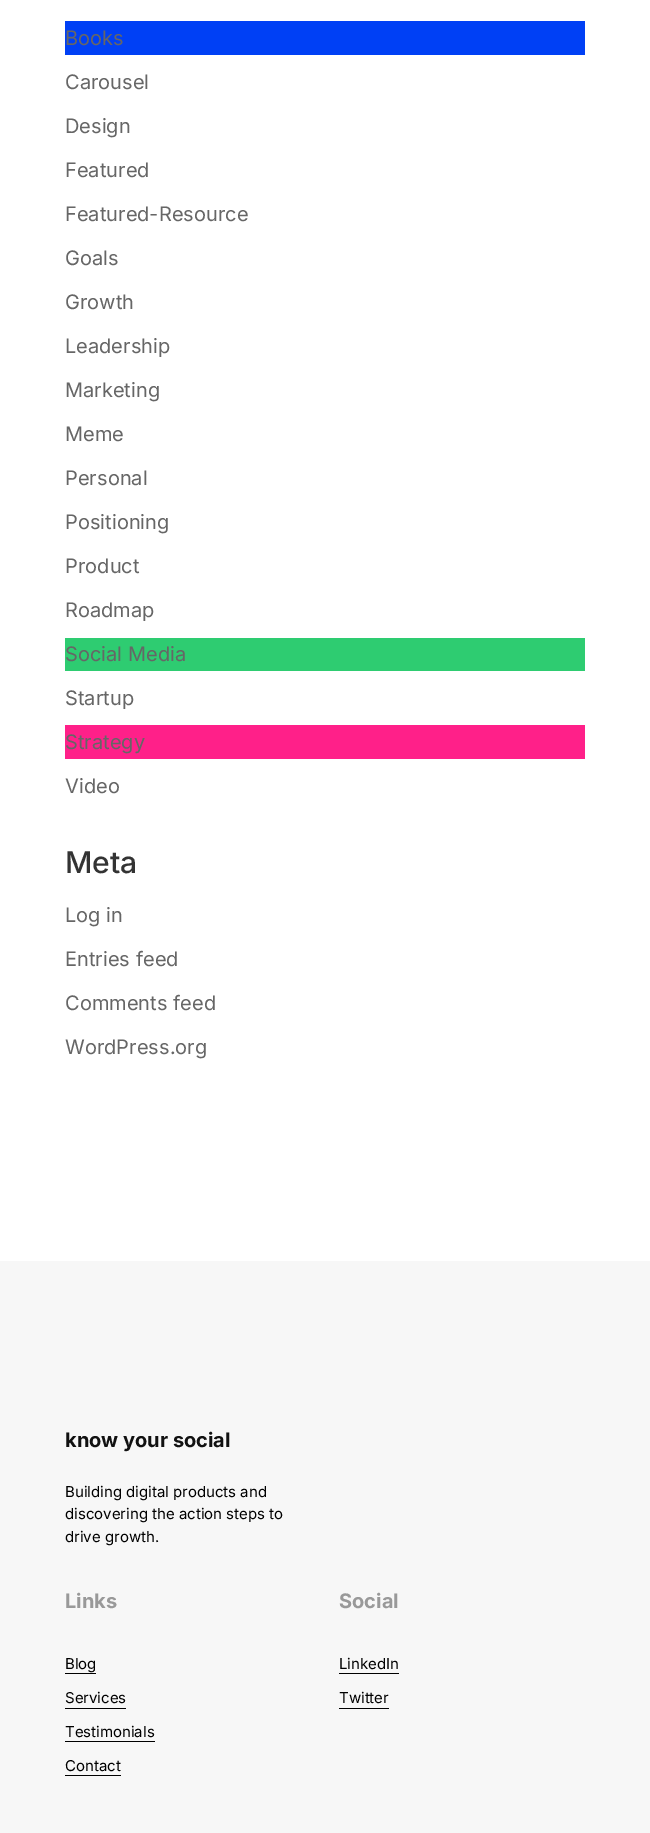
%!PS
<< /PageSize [650 1833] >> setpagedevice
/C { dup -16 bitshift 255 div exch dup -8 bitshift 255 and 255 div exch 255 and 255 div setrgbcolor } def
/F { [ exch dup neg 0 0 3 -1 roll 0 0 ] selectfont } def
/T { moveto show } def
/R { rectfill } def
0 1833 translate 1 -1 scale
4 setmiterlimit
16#FFFFFF C
0 0 650 1833 R
16#0040F5 C
65 21 520 34 R
/Inter-Regular 20 F
16#666666 C
(Books) 65 45 T
(Carousel) 65 89 T
(Design) 65 133 T
(Featured) 65 177 T
(Featured-Resource) 65 221 T
(Goals) 65 265 T
(Growth) 65 309 T
(Leadership) 65 353 T
(Marketing) 65 397 T
(Meme) 65 441 T
(Personal) 65 485 T
(Positioning) 65 529 T
(Product) 65 573 T
(Roadmap) 65 617 T
16#2ECC71 C
65 638 520 33 R
16#666666 C
(Social Media) 65 661 T
(Startup) 65 705 T
16#FF2089 C
65 725 520 34 R
16#666666 C
(Strategy) 65 749 T
(Video) 65 793 T
/Inter-Medium 30 F
16#333333 C
(Meta) 65 873 T
/Inter-Regular 20 F
16#666666 C
(Log in) 65 922 T
(Entries feed) 65 966 T
(Comments feed) 65 1010 T
(WordPress.org) 65 1054 T
16#F7F7F7 C
0 1261 650 572 R
/Inter-Bold 20 F
16#111111 C
(know your social) 65 1447 T
/Inter-Regular 15 F
16#000000 C
(Building digital products and) 65 1497 T
(discovering the action steps to) 65 1519 T
(drive growth.) 65 1542 T
/Inter-Bold 20 F
16#999999 C
(Links) 65 1608 T
/Inter-Regular 15 F
16#000000 C
(Blog) 65 1669 T
65 1673 31 1 R
(Services) 65 1703 T
65 1708 61 1 R
(Testimonials) 65 1737 T
65 1741 90 1 R
(Contact) 65 1771 T
65 1775 56 1 R
/Inter-Bold 20 F
16#999999 C
(Social) 339 1608 T
/Inter-Regular 15 F
16#000000 C
(LinkedIn) 339 1669 T
339 1673 60 1 R
(Twitter) 339 1703 T
339 1708 50 1 R
showpage
